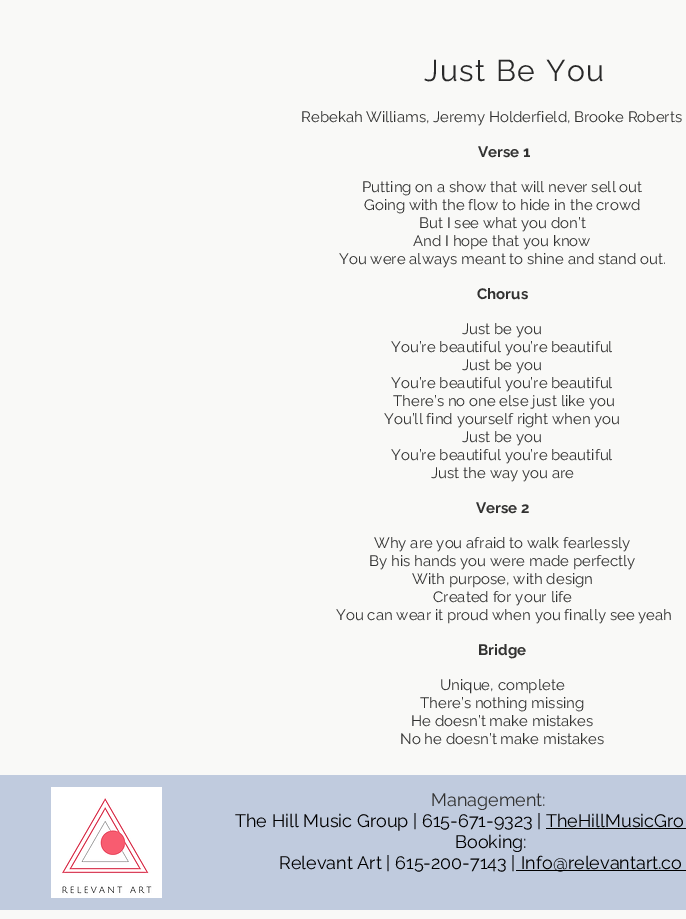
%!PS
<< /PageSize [686 919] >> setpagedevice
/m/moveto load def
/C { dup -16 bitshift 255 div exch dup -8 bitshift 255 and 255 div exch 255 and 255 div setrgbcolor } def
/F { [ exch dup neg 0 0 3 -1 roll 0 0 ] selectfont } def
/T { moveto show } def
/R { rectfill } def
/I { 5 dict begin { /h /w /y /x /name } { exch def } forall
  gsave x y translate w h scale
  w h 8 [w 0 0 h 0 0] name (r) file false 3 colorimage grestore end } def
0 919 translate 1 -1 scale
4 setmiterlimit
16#F9F9F7 C
0 0 686 919 R
/Raleway-Regular 30 F
16#292929 C
424 81 m 1.5 0 (Just Be You) ashow
/Raleway-Regular 15 F
16#323231 C
(Rebekah Williams, Jeremy Holderfield, Brooke Roberts) 301 122 T
/Raleway-Bold 15 F
(Verse 1) 478 157 T
/Raleway-Regular 15 F
(Putting on a show that will never sell out) 362 192 T
(Going with the flow to hide in the crowd) 364 210 T
(But I see what you don’t) 419 228 T
(And I hope that you know) 413 246 T
(You were always meant to shine and stand out.) 339 264 T
/Raleway-Bold 15 F
(Chorus) 477 299 T
/Raleway-Regular 15 F
(Just be you) 462 334 T
(You’re beautiful you’re beautiful) 391 352 T
(Just be you) 462 370 T
(You’re beautiful you’re beautiful) 391 388 T
(There’s no one else just like you) 393 406 T
(You’ll find yourself right when you) 384 424 T
(Just be you) 462 442 T
(You’re beautiful you’re beautiful) 391 460 T
(Just the way you are) 431 478 T
/Raleway-Bold 15 F
(Verse 2) 476 513 T
/Raleway-Regular 15 F
(Why are you afraid to walk fearlessly) 374 548 T
(By his hands you were made perfectly) 369 566 T
(With purpose, with design) 412 584 T
(Created for your life) 433 602 T
(You can wear it proud when you finally see yeah) 336 620 T
/Raleway-Bold 15 F
(Bridge) 478 655 T
/Raleway-Regular 15 F
(Unique, complete) 440 690 T
(There’s nothing missing) 420 708 T
(He doesn’t make mistakes) 411 726 T
(No he doesn’t make mistakes) 400 744 T
16#C0CBDE C
0 775 686 135 R
(1.rgb) 51 787 111 111 I
/Raleway-Regular 18 F
16#323231 C
(Management:) 431 806 T
16#000000 C
(The Hill Music Group | 615-671-9323 | TheHillMusicGro) 235 827 T
546 828 140 1 R
(Booking:) 455 848 T
(Relevant Art | 615-200-7143 |) 279 869 T
516 870 170 1 R
(Info@relevantart.co) 521 869 T
showpage
